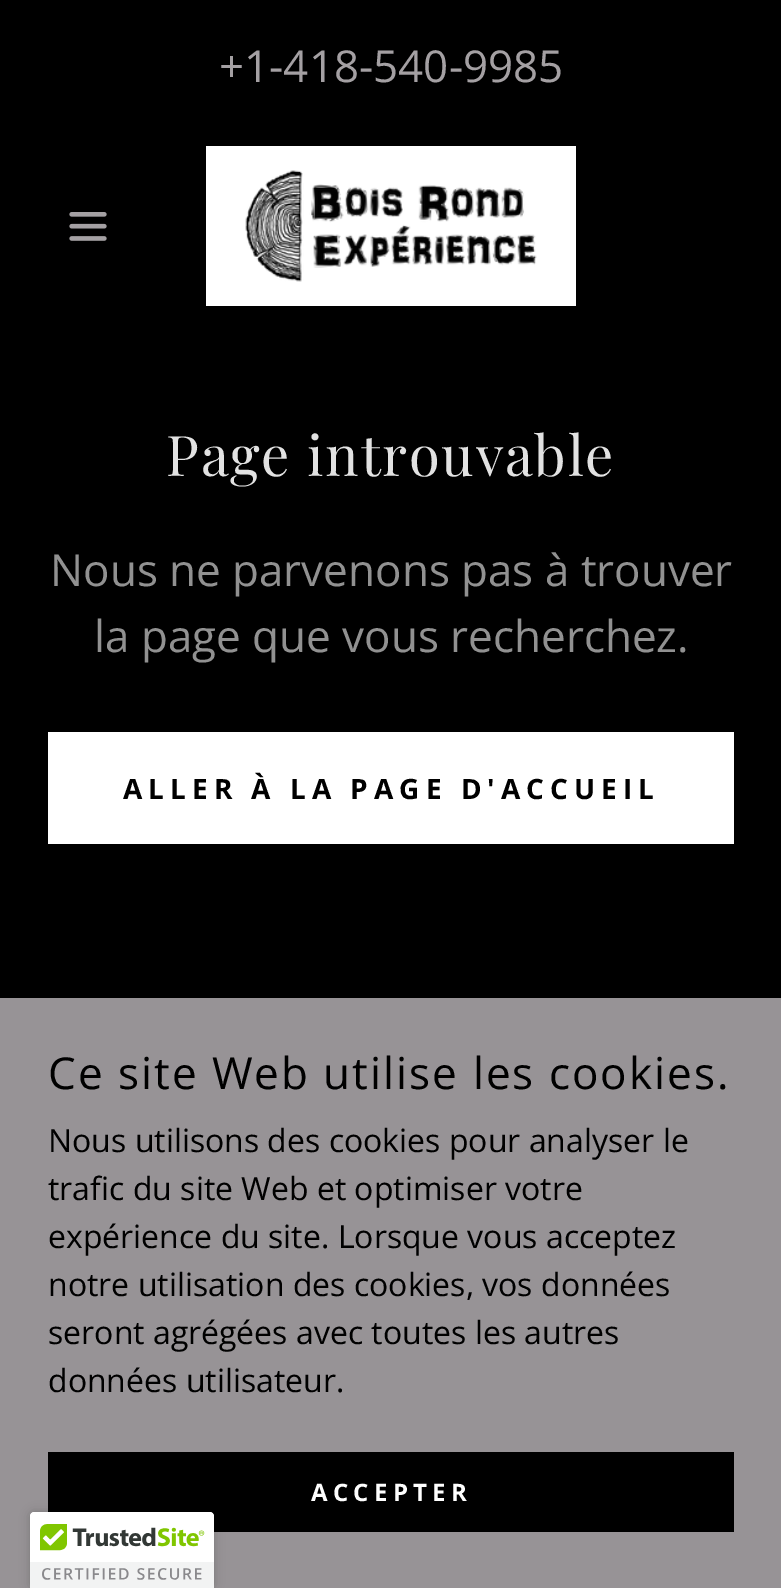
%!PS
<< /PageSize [781 1588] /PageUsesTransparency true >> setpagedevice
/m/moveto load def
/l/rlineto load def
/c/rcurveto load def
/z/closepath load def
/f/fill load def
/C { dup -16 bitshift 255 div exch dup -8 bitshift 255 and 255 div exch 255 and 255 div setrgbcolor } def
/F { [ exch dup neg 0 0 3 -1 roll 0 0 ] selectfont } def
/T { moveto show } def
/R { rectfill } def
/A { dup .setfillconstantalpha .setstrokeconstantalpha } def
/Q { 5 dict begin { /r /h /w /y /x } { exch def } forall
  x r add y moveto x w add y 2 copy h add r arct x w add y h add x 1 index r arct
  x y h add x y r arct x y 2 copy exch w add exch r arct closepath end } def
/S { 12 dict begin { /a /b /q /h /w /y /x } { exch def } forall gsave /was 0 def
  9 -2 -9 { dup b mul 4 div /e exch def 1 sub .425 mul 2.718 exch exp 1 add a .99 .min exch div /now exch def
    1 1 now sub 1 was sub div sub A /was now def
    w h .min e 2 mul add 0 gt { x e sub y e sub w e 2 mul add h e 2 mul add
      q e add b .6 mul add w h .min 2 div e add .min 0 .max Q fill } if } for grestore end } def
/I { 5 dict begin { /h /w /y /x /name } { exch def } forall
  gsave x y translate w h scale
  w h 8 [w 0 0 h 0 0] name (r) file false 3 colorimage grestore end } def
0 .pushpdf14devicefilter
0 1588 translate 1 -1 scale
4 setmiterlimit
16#000000 C
0 0 781 1588 R
/OpenSans-Regular 44 F
16#A4A0A3 C
(+1-418-540-9985) 219 82 T
(1.rgb) 69 212 38 29 I
16#FFFFFF C
206 146 370 160 R
(2.rgb) 245 170 292 112 I
/PlayfairDisplay-Regular 56 F
16#E2E2E2 C
166 476 m 1.75 0 (Page introuvable) ashow
/OpenSans-Regular 44 F
16#919191 C
(Nous ne parvenons pas à trouver) 50 586 T
(la page que vous recherchez.) 94 652 T
16#FFFFFF C
48 732 686 112 R
/OpenSans-Bold 28 F
16#000000 C
123 799 m 6 0 (ALLER À LA PAGE D'ACCUEIL) ashow
16#979396 C
0 998 781 590 R
/OpenSans-Regular 44 F
16#000000 C
48 1089 m 2 0 (Ce site Web utilise les cookies.) ashow
/OpenSans-Regular 32 F
(Nous utilisons des cookies pour analyser le) 48 1152 T
(trafic du site Web et optimiser votre) 48 1200 T
(expérience du site. Lorsque vous acceptez) 48 1248 T
(notre utilisation des cookies, vos données) 48 1296 T
(seront agrégées avec toutes les autres) 48 1344 T
(données utilisateur.) 48 1392 T
48 1452 686 80 R
/OpenSans-Bold 24 F
16#FFFFFF C
311 1501 m 5.25 0 (ACCEPTER) ashow
16#000000 C
30 1512 184 76 4 5 .2 S
16#FFFFFF C
34 1512 m 176 0 l 2 0 4 2 4 4 c 0 72 l -184 0 l 0 -72 l 0 -2 2 -4 4 -4 c z f
(3.rgb) 30 1512 184 76 I
.poppdf14devicefilter showpage
